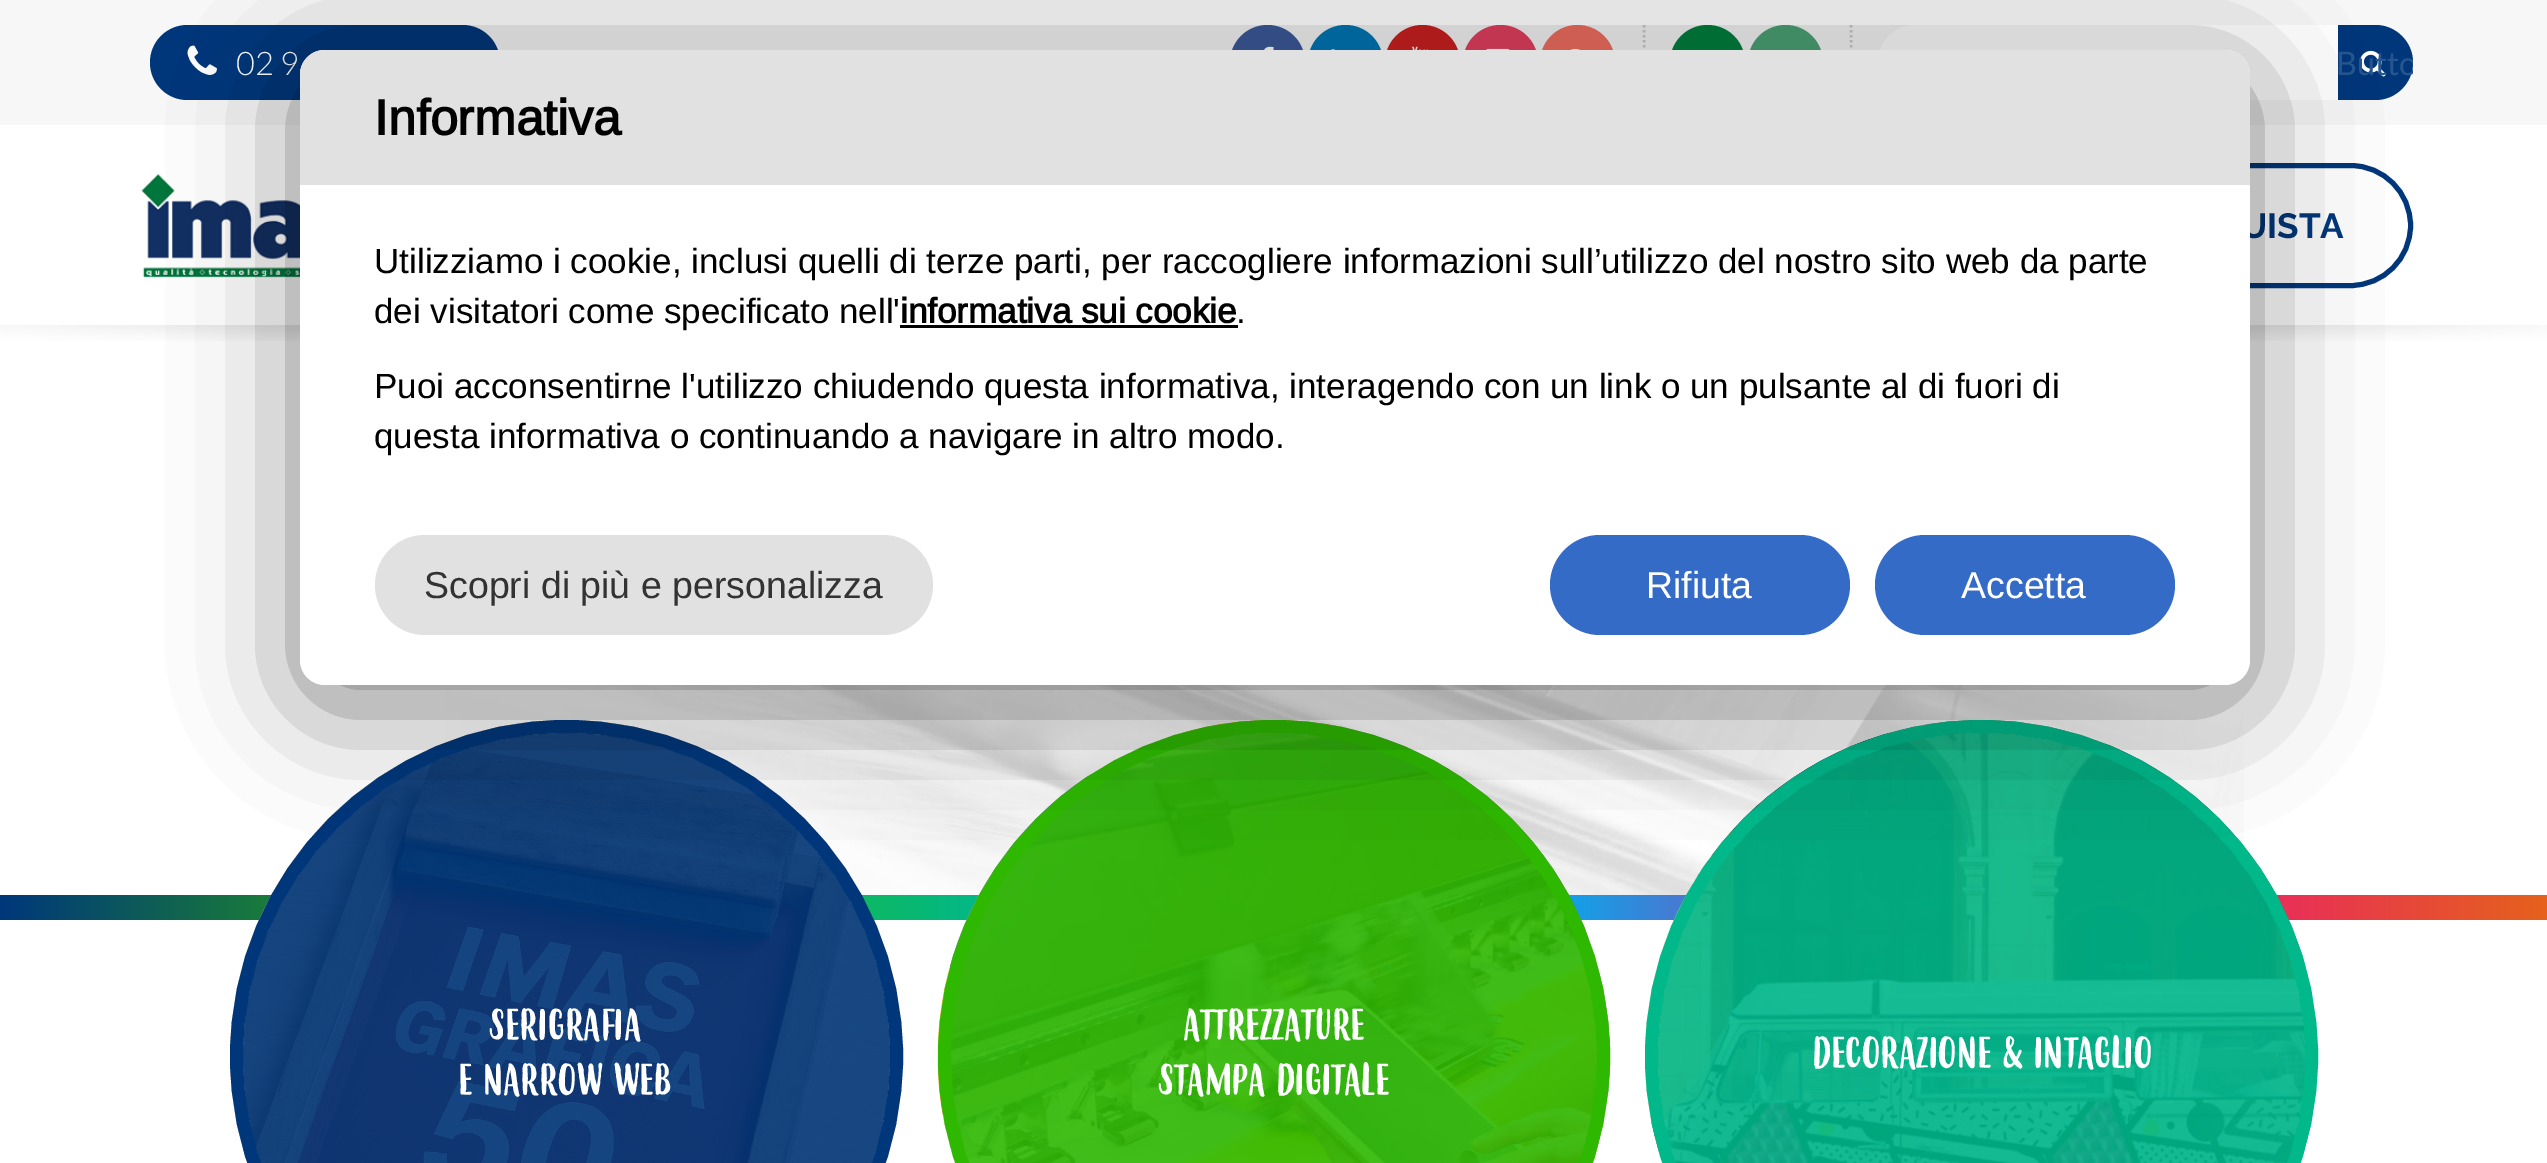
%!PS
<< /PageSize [2547 1163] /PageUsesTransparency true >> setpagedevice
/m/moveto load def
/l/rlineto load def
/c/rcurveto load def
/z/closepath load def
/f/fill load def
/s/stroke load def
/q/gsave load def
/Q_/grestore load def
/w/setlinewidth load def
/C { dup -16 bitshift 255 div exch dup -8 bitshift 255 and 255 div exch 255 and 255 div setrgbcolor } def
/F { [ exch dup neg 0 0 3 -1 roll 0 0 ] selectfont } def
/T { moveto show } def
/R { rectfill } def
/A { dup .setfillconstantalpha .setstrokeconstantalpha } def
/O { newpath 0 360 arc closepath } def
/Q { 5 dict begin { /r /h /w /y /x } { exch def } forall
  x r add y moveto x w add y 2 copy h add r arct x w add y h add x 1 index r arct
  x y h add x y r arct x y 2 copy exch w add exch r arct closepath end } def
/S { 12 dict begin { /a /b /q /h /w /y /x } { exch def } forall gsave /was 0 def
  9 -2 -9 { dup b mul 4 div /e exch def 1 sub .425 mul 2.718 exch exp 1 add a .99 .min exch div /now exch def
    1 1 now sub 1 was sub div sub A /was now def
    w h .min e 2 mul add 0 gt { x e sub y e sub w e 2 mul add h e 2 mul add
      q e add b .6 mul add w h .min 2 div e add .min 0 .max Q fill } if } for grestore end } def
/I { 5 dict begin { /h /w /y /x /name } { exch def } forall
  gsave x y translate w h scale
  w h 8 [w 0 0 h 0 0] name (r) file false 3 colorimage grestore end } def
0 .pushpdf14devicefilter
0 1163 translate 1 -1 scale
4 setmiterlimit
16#FFFFFF C
0 0 2547 1163 R
16#F7F7F7 C
0 0 2547 125 R
16#00377B C
150 25 350 75 37.5 Q f
(1.rgb) 187 45 30 30 I
/Lato-Light 32.5 F
16#FFFFFF C
(02 9) 236 75 T
16#3B5999 C
1267.5 62.5 37.5 O f
(2.rgb) 1264 46 10 4 I
16#0077B5 C
1345.5 62.5 37.5 O f
(3.rgb) 1331 49 4 1 I
16#CD201F C
1422.5 62.5 37.5 O f
(4.rgb) 1412 46 16 4 I
16#E4405F C
1500.5 62.5 37.5 O f
(5.rgb) 1486 48 24 2 I
16#F26F61 C
1577.5 62.5 37.5 O f
(6.rgb) 1570 48 11 2 I
16#CCCCCC C
2.5 w
[2.5 2.5] 0 setdash
1644 25 m 0 75 l s
16#007F3E C
1707.5 62.5 37.5 O f
16#4AA376 C
1785.5 62.5 37.5 O f
16#CCCCCC C
1851 25 m 0 75 l s
16#FFFFFF C
1878 25 535 75 37.5 Q f
16#00377B C
2338 25 m 37.5 0 l 20.5 0 37.5 17 37.5 37.5 c 0 20.5 -17 37.5 -37.5 37.5 c -37.5 0 l z f
(7.rgb) 2360 50 26 27 I
q
2338 25 75 75 rectclip
/Lato-Regular 32.5 F
16#27568F C
(Butto) 2336 75 T
Q_
(8.rgb) 141 174 159 104 I
5 w
[] 0 setdash
2102.5 165.5 308 120 60 Q s
/Raleway-Bold 35 F
(UISTA) 2241 238 T
(9.rgb) 0 325 2547 16 I
(10.rgb) 445 676 1799 219 I
q 0 895 m 2547 0 l 0 25 l -2547 0 l z clip newpath
<< /ShadingType 2 /ColorSpace /DeviceRGB /Coords [0 908 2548 907] /Extend [true true] /Function << /FunctionType 3 /Domain [0 1] /Functions [<< /FunctionType 2 /Domain [0 1] /C0 [0 .216 .482] /C1 [.18 .722 0] /N 1 >> << /FunctionType 2 /Domain [0 1] /C0 [.18 .722 0] /C1 [0 .722 .541] /N 1 >> << /FunctionType 2 /Domain [0 1] /C0 [0 .722 .541] /C1 [0 .682 .937] /N 1 >> << /FunctionType 2 /Domain [0 1] /C0 [0 .682 .937] /C1 [.925 0 .549] /N 1 >> << /FunctionType 2 /Domain [0 1] /C0 [.925 0 .549] /C1 [.898 .384 .11] /N 1 >>] /Bounds [.2 .39 .6 .8] /Encode [0 1 0 1 0 1 0 1 0 1] >> >> shfill Q_
(11.rgb) 230 720 673 443 I
13 w
566.5 1056.5 330 O s
0.9 A
566.5 1056.5 323.5 O f
/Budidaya-Regular 42.5 F
1 A
16#FFFFFF C
(SERIGRAFIA) 489 1039 T
(E NARROW WEB) 458 1094 T
(12.rgb) 937 720 673 443 I
16#2EB800 C
944.5 726.5 659 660 329.5 Q s
0.9 A
950 733 648 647 323.5 Q f
1 A
16#FFFFFF C
(ATTREZZATURE) 1183 1039 T
(STAMPA DIGITALE) 1158 1094 T
(13.rgb) 1645 720 673 443 I
16#00B88A C
1981.5 1056.5 330 O s
0.9 A
1981.5 1056.5 323.5 O f
1 A
16#FFFFFF C
(DECORAZIONE & INTAGLIO) 1812 1067 T
16#000000 C
300 70 1950 635 25 60 .5 S
16#FFFFFF C
300 50 1950 635 25 Q f
16#E1E1E1 C
325 50 m 1900 0 l 14 0 25 11 25 25 c 0 110 l -1950 0 l 0 -110 l 0 -14 11 -25 25 -25 c z f
/Arimo-Bold 50 F
16#000000 C
(Informativa) 374 135 T
/Arimo-Regular 35 F
(Utilizziamo i cookie, inclusi quelli di terze parti, per raccogliere informazioni sull’utilizzo del nostro sito web da parte) 374 273 T
(dei visitatori come specificato nell') 374 323 T
/Arimo-Bold 35 F
(informativa sui cookie) 900 323 T
900 325 338 3 R
/Arimo-Regular 35 F
(.) 1236 323 T
(Puoi acconsentirne l'utilizzo chiudendo questa informativa, interagendo con un link o un pulsante al di fuori di) 374 398 T
(questa informativa o continuando a navigare in altro modo.) 374 448 T
16#E1E1E1 C
375 535 558 100 50 Q f
/Arimo-Regular 37.5 F
16#333333 C
(Scopri di più e personalizza) 424 598 T
16#346BC7 C
1550 535 300 100 50 Q f
16#FFFFFF C
(Rifiuta) 1646 598 T
16#346BC7 C
1875 535 300 100 50 Q f
16#FFFFFF C
(Accetta) 1961 598 T
.poppdf14devicefilter showpage
